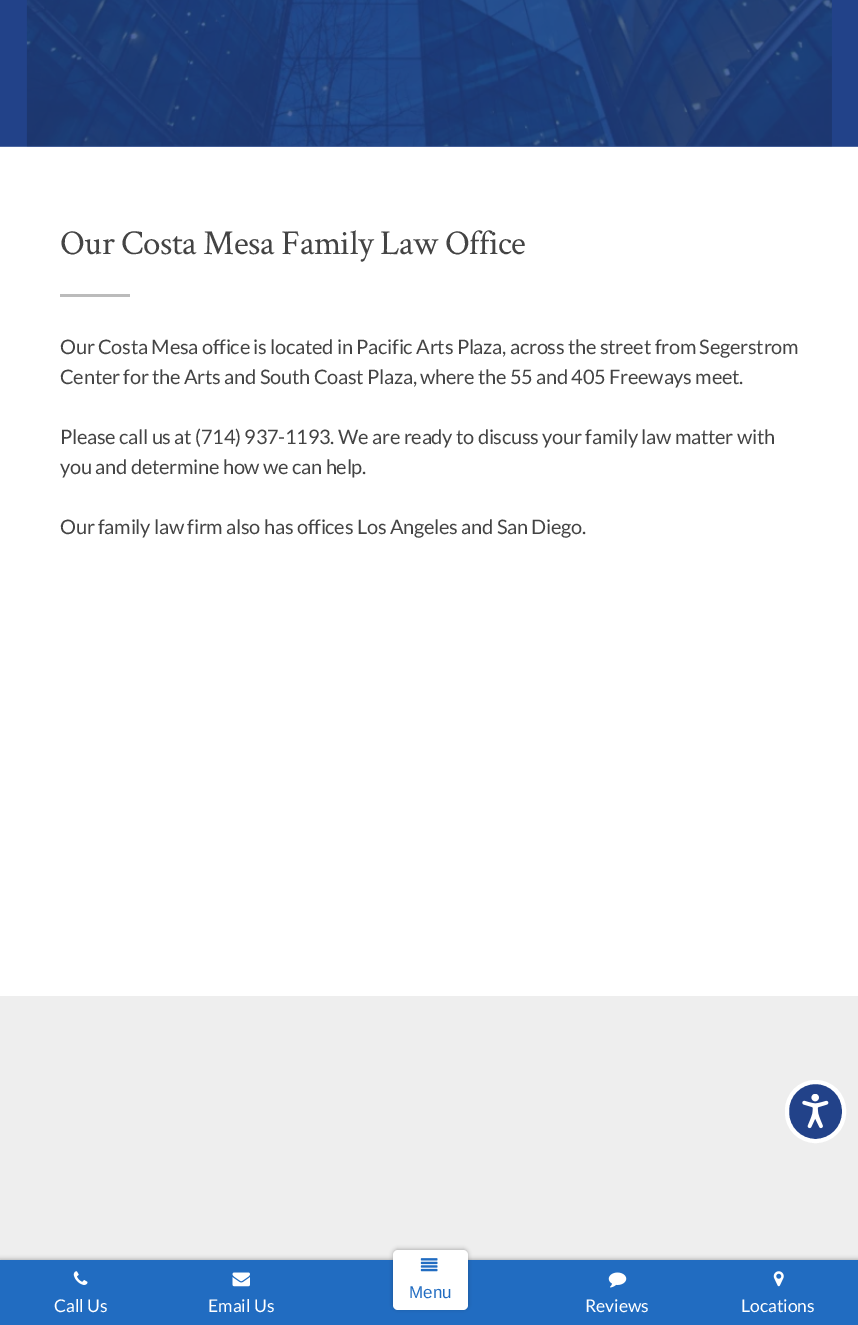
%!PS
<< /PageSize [858 1325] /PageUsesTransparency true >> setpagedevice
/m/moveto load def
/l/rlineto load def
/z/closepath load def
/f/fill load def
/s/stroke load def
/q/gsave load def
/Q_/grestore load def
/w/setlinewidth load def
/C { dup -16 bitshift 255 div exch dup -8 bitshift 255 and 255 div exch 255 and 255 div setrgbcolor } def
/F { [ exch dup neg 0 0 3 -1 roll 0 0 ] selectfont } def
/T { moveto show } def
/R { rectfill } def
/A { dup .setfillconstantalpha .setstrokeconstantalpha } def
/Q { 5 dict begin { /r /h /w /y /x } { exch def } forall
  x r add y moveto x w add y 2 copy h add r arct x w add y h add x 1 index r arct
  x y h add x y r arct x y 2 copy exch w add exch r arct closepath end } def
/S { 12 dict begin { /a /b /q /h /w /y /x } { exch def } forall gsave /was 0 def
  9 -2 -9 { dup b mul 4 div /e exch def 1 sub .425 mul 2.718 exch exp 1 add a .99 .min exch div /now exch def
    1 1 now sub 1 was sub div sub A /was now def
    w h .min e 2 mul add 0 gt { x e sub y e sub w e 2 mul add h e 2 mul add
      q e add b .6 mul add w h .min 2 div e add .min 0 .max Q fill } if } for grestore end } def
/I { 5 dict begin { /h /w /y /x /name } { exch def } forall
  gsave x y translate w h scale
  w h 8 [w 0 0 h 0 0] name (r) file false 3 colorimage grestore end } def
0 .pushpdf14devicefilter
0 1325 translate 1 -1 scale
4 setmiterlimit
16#FFFFFF C
0 0 858 1325 R
16#224289 C
0 0 858 146 R
(1.rgb) 26 0 806 147 I
0.8 A
0 -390 m 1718 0 l -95 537 l -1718 0 l z f
/CrimsonText-Regular 35 F
1 A
16#444444 C
60 254 m -.5 0 (Our Costa Mesa Family Law Office) ashow
16#BBBBBB C
60 294 70 3 R
/Lato-Regular 20 F
16#444444 C
60 354 m -.25 0 (Our Costa Mesa office is located in Pacific Arts Plaza, across the street from Segerstrom) ashow
60 384 m -.25 0 (Center for the Arts and South Coast Plaza, where the 55 and 405 Freeways meet.) ashow
60 444 m -.25 0 (Please call us at \(714\) 937-1193. We are ready to discuss your family law matter with) ashow
60 474 m -.25 0 (you and determine how we can help.) ashow
60 534 m -.25 0 (Our family law firm also has offices Los Angeles and San Diego.) ashow
16#EEEEEE C
0 996 858 264 R
16#000000 C
0 1259 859 65 0 2 .25 S
16#216CC1 C
0 1260 858 65 R
16#000000 C
393 1249 75 60 5 2 .25 S
16#FFFFFF C
393 1250 75 60 5 Q f
(2.rgb) 420 1258 18 14 I
/LiberationSans-Regular 17 F
16#216CC1 C
(Menu) 409 1298 T
(3.rgb) 73 1271 15 14 I
/Lato-Regular 17.5 F
16#FFFFFF C
(Call Us) 54 1312 T
(4.rgb) 232 1272 18 15 I
(Email Us) 208 1312 T
(5.rgb) 608 1272 19 16 I
(Reviews) 585 1312 T
(6.rgb) 773 1271 11 16 I
(Locations) 741 1312 T
16#224289 C
787 1082 57 59 28.5 Q q f Q_
16#FFFFFF C
4 w
s
(7.rgb) 802 1094 27 35 I
.poppdf14devicefilter showpage
